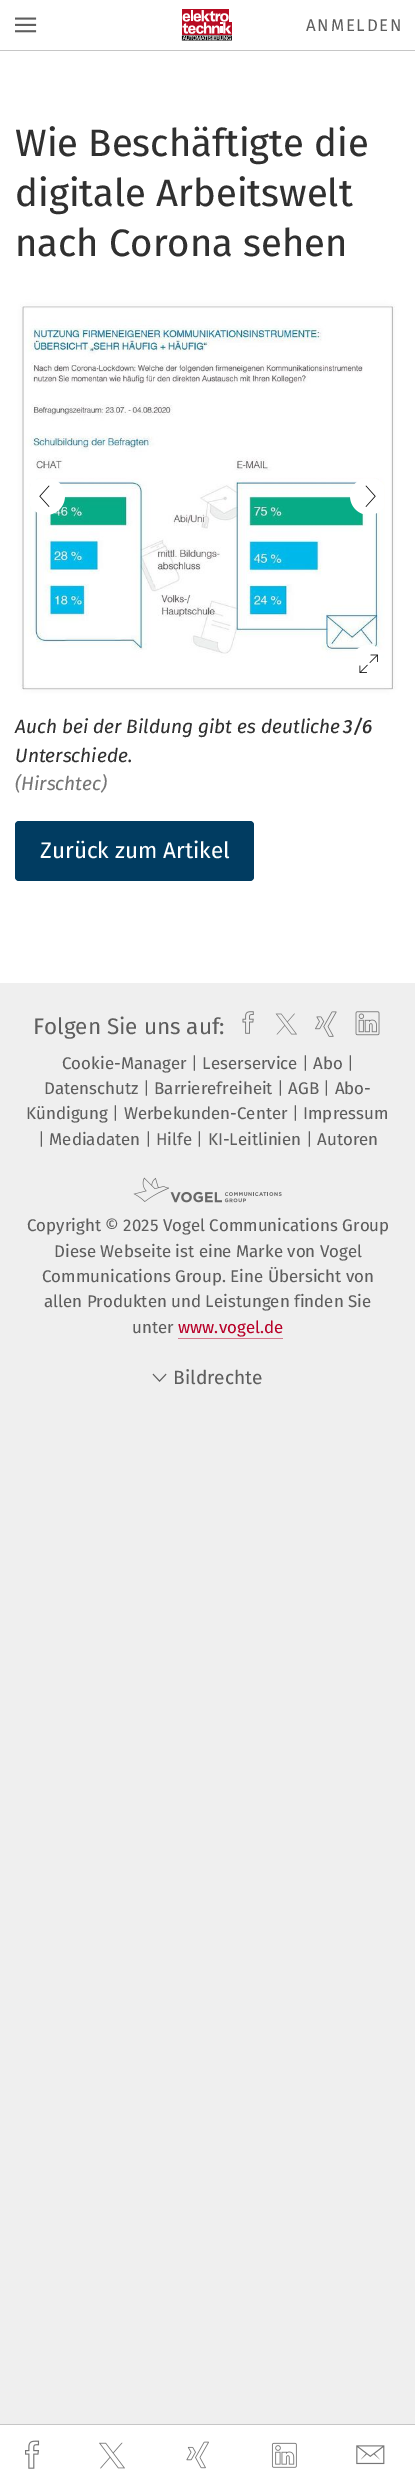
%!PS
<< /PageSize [415 2486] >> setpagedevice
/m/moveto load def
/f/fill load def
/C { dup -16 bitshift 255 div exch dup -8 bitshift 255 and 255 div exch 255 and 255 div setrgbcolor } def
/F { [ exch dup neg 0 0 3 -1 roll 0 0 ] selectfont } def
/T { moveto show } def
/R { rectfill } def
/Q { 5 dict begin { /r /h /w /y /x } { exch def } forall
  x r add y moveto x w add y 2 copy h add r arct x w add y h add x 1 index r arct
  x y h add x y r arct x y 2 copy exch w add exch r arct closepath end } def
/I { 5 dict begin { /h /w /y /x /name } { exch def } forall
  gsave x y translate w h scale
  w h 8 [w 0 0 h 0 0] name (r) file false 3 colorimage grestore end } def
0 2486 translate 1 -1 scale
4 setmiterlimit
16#EFEFEF C
0 0 415 2486 R
16#FFFFFF C
0 51 415 932 R
0 0 415 50 R
16#C6C6C6 C
0 50 415 1 R
(1.rgb) 15 17 22 16 I
(2.rgb) 181 9 51 32 I
/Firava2-Regular 16.9 F
16#5E5E5E C
306 31 m 1.75 0 (ANMELDEN) ashow
/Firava-Regular 38.25 F
16#303030 C
(Wie Beschäftigte die) 15 156 T
(digitale Arbeitswelt) 15 206 T
(nach Corona sehen) 15 256 T
(3.rgb) 15 299 385 396 I
(4.rgb) 30 479 35 36 I
(5.rgb) 350 479 34 35 I
(6.rgb) 356 645 23 28 I
/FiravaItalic-Italic 19.1 F
(Auch bei der Bildung gibt es deutliche) 15 733 T
(Unterschiede.) 15 762 T
16#767676 C
(\(Hirschtec\)) 15 790 T
/FiravaItalic-MediumItalic 19.1 F
16#303030 C
(3/6) 343 733 T
16#013C61 C
15 821 239 60 4 Q f
/Firava-Regular 22.5 F
16#FFFFFF C
(Zurück zum Artikel) 40 858 T
0 2425 415 61 R
16#C6C6C6 C
0 2424 415 1 R
(7.rgb) 25 2440 15 29 I
(8.rgb) 99 2442 26 27 I
(9.rgb) 186 2441 23 28 I
(10.rgb) 271 2442 26 26 I
(11.rgb) 356 2445 29 20 I
/Firava2-Regular 22.5 F
16#5E5E5E C
(Folgen Sie uns auf:) 33 1034 T
(12.rgb) 242 1011 12 23 I
(13.rgb) 275 1013 22 22 I
(14.rgb) 315 1011 22 26 I
(15.rgb) 355 1011 25 25 I
/Firava-Regular 16.9 F
(Cookie-Manager | Leserservice | Abo |) 62 1069 T
(Datenschutz | Barrierefreiheit | AGB | Abo-) 44 1094 T
(Kündigung | Werbekunden-Center | Impressum) 26 1119 T
(| Mediadaten | Hilfe | KI-Leitlinien | Autoren) 38 1145 T
(16.rgb) 133 1177 149 26 I
(Copyright © 2025 Vogel Communications Group) 27 1231 T
(Diese Webseite ist eine Marke von Vogel) 54 1257 T
(Communications Group. Eine Übersicht von) 42 1282 T
(allen Produkten und Leistungen finden Sie) 44 1307 T
(unter) 132 1333 T
16#B8022A C
(www.vogel.de) 178 1333 T
16#D4798D C
178 1338 105 1 R
(17.rgb) 152 1373 15 9 I
/Firava-Regular 19.1 F
16#5E5E5E C
(Bildrechte) 173 1384 T
showpage
